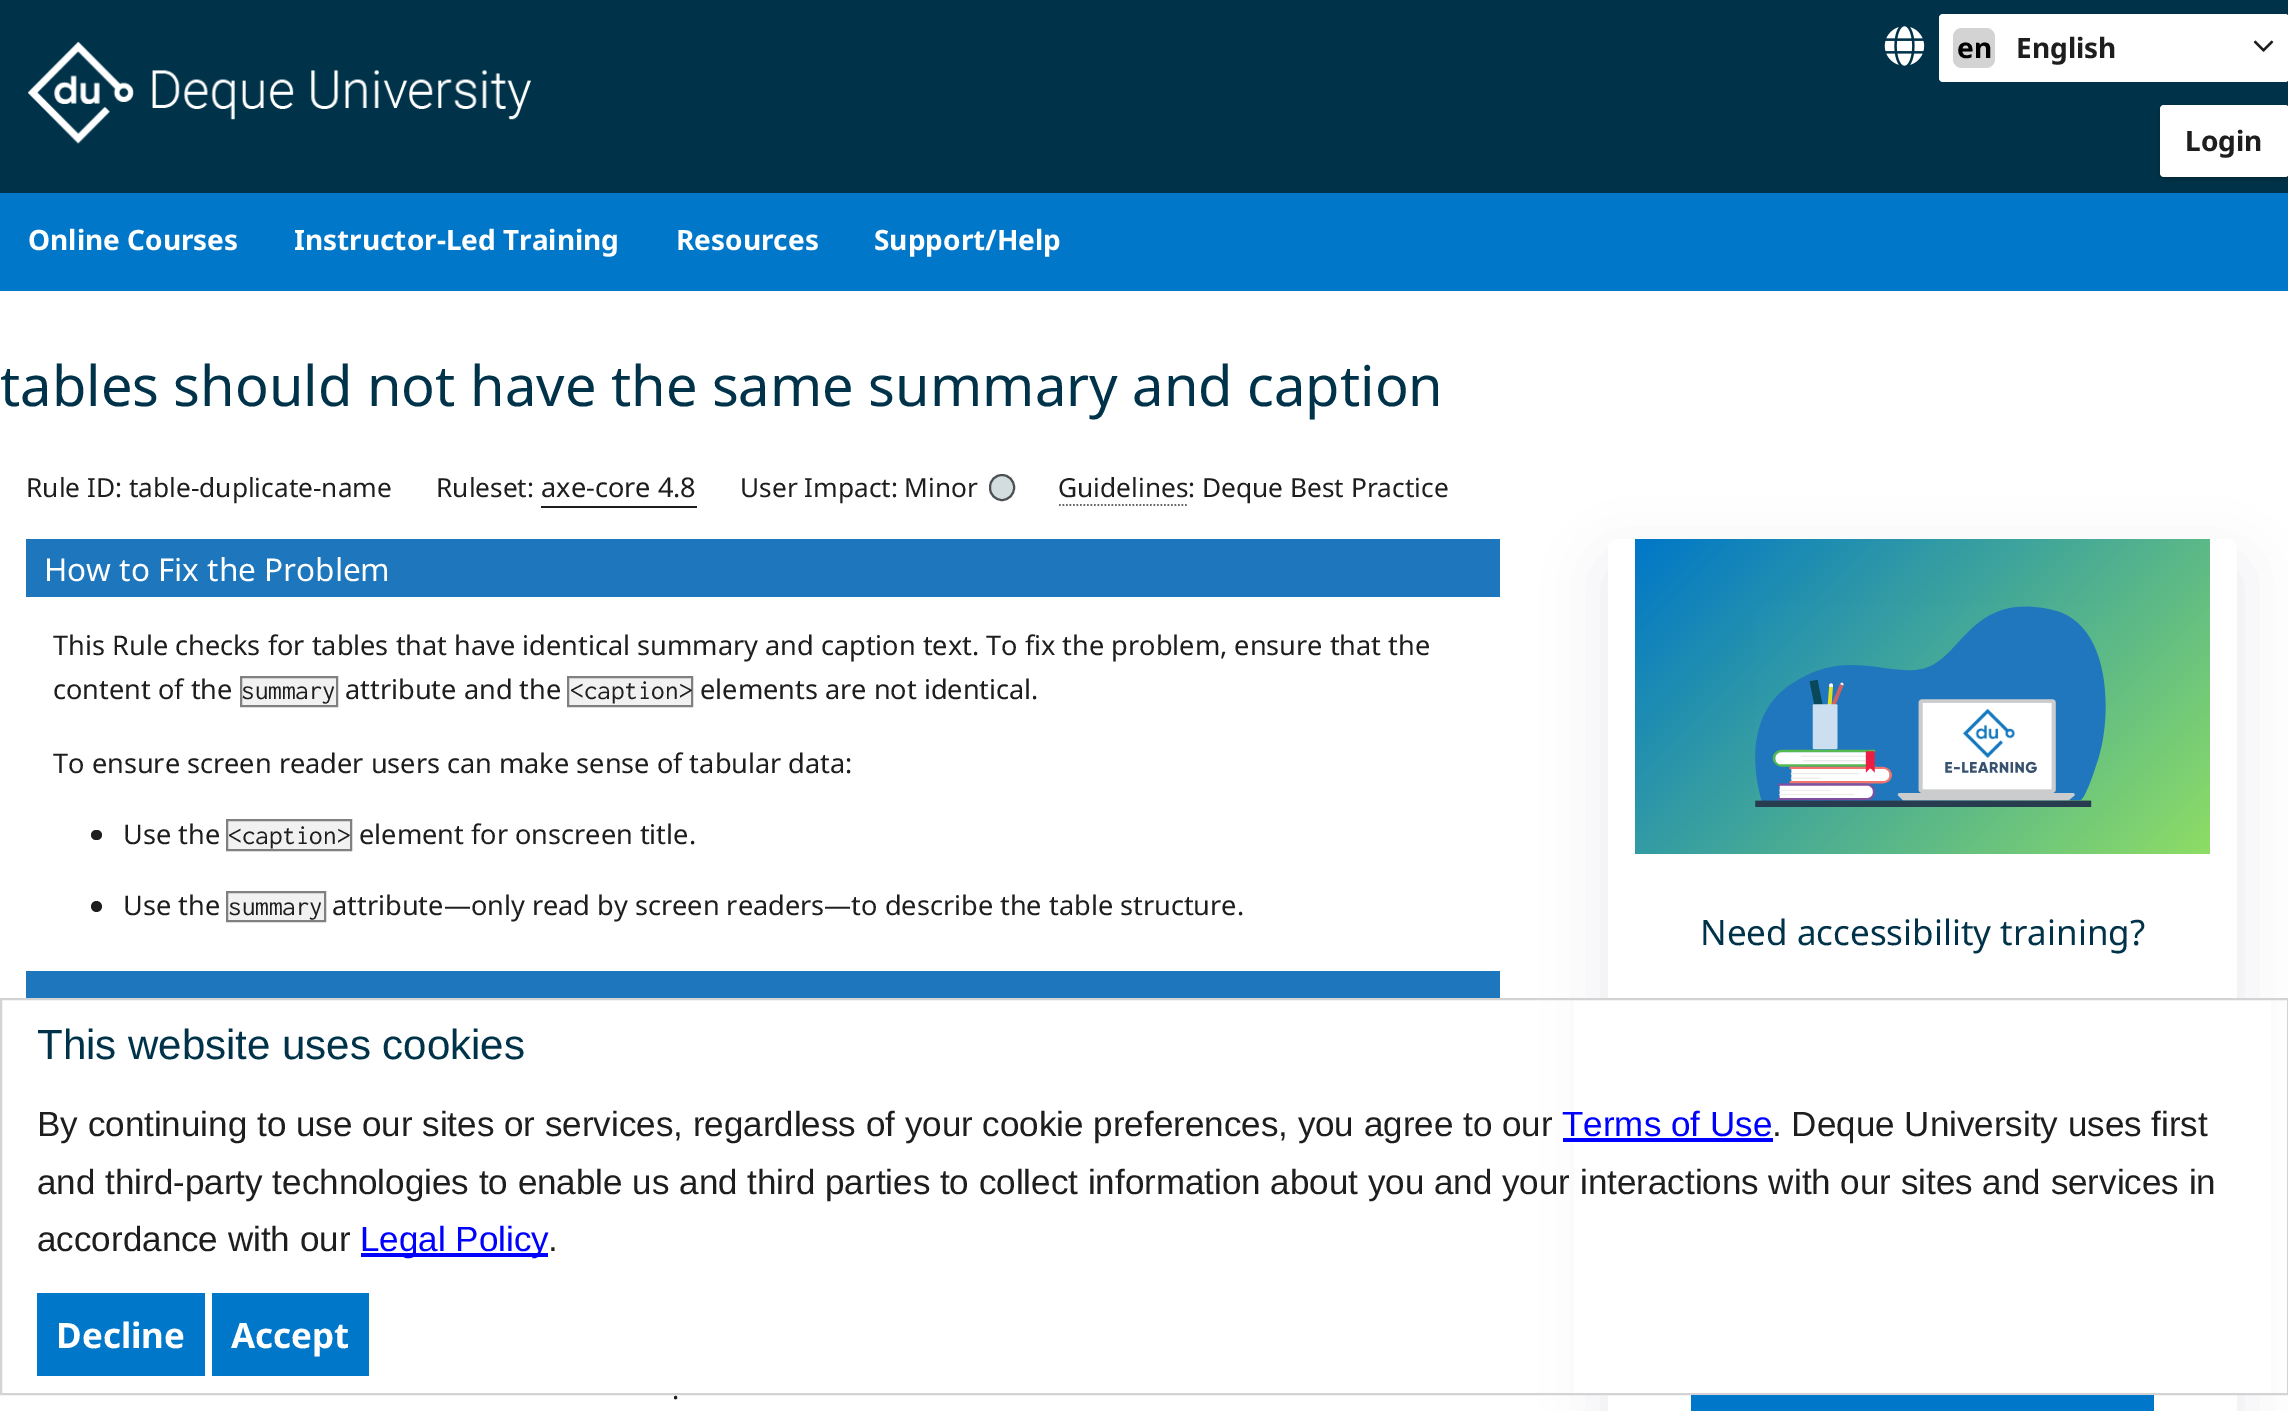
%!PS
<< /PageSize [2288 1411] /PageUsesTransparency true >> setpagedevice
/m/moveto load def
/l/rlineto load def
/c/rcurveto load def
/z/closepath load def
/f/fill load def
/s/stroke load def
/q/gsave load def
/Q_/grestore load def
/w/setlinewidth load def
/C { dup -16 bitshift 255 div exch dup -8 bitshift 255 and 255 div exch 255 and 255 div setrgbcolor } def
/F { [ exch dup neg 0 0 3 -1 roll 0 0 ] selectfont } def
/T { moveto show } def
/R { rectfill } def
/A { dup .setfillconstantalpha .setstrokeconstantalpha } def
/O { newpath 0 360 arc closepath } def
/Q { 5 dict begin { /r /h /w /y /x } { exch def } forall
  x r add y moveto x w add y 2 copy h add r arct x w add y h add x 1 index r arct
  x y h add x y r arct x y 2 copy exch w add exch r arct closepath end } def
/S { 12 dict begin { /a /b /q /h /w /y /x } { exch def } forall gsave /was 0 def
  9 -2 -9 { dup b mul 4 div /e exch def 1 sub .425 mul 2.718 exch exp 1 add a .99 .min exch div /now exch def
    1 1 now sub 1 was sub div sub A /was now def
    w h .min e 2 mul add 0 gt { x e sub y e sub w e 2 mul add h e 2 mul add
      q e add b .6 mul add w h .min 2 div e add .min 0 .max Q fill } if } for grestore end } def
/I { 5 dict begin { /h /w /y /x /name } { exch def } forall
  gsave x y translate w h scale
  w h 8 [w 0 0 h 0 0] name (r) file false 3 colorimage grestore end } def
0 .pushpdf14devicefilter
0 1411 translate 1 -1 scale
4 setmiterlimit
16#FFFFFF C
0 0 2288 1411 R
16#0077C8 C
0 193 2288 98 R
16#003349 C
0 0 2288 193 R
(1.rgb) 28 42 503 102 I
(2.rgb) 1884 26 41 40 I
16#FFFFFF C
1939 14 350 68 4 Q f
16#D3D3D3 C
1953 28 42 40 9 Q f
/NotoSans-Bold 28 F
16#000000 C
(en) 1957 58 T
16#1E1E1E C
(English) 2016 58 T
(3.rgb) 2253 40 21 12 I
16#000000 C
2160 107 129 72 4 2.5 .25 S
16#FFFFFF C
2160 105 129 72 4 Q f
16#1E1E1E C
(Login) 2185 151 T
16#FFFFFF C
(Online Courses) 28 250 T
(Instructor-Led Training) 294 250 T
(Resources) 676 250 T
(Support/Help) 874 250 T
q
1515 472 m 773 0 l 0 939 l -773 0 l z 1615 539 m 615 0 l 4 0 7 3 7 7 c 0 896 l 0 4 -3 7 -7 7 c -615 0 l -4 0 -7 -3 -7 -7 c 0 -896 l 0 -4 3 -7 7 -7 c z eoclip newpath
16#32325D C
1608 565 629 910 7 30.5 .1 S
Q_
1574 1000 697 393 R
16#D3D3D3 C
2 w
1 999 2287 395 rectstroke
/LiberationSans-Regular 42 F
16#003349 C
(This website uses cookies) 37 1059 T
/LiberationSans-Regular 35 F
16#1E1E1E C
(By continuing to use our sites or services, regardless of your cookie preferences, you agree to our) 37 1136 T
16#0000FF C
(Terms of Use) 1562 1136 T
1563 1138 210 4 R
16#1E1E1E C
(. Deque University uses first) 1772 1136 T
(and third-party technologies to enable us and third parties to collect information about you and your interactions with our sites and services in) 37 1194 T
(accordance with our) 37 1251 T
16#0000FF C
361 1253 187 4 R
(Legal Policy) 360 1251 T
16#1E1E1E C
(.) 548 1251 T
16#0077C8 C
37 1293 168 83 R
/NotoSans-Bold 35 F
16#FFFFFF C
(Decline) 56 1348 T
16#0077C8 C
212 1293 157 83 R
16#FFFFFF C
(Accept) 231 1348 T
/NotoSans-Regular 56 F
16#003349 C
(tables should not have the same summary and caption) 0 406 T
/NotoSans-Regular 26.25 F
16#1E1E1E C
(Rule ID: table-duplicate-name) 26 497 T
(Ruleset:) 436 497 T
/NotoSans-Regular 27.13 F
(axe-core 4.8) 541 497 T
541 506 156 2 R
/NotoSans-Regular 26.25 F
(User Impact: Minor) 740 497 T
16#D3DDE0 C
990 475 24 25 12 Q q f Q_
16#4B4F54 C
s
16#1E1E1E C
(Guidelines: Deque Best Practice) 1058 497 T
16#666666 C
1.8 w
[1.75 1.75] 0 setdash
1059 505 m 129 0 l s
16#1E77BC C
26 539 1474 58 R
/NotoSans-Regular 31.5 F
16#FFFFFF C
(How to Fix the Problem) 44 581 T
/NotoSans-Regular 27.13 F
16#1E1E1E C
(This Rule checks for tables that have identical summary and caption text. To fix the problem, ensure that the) 53 655 T
(content of the) 53 699 T
16#F1F1F1 C
241 677 m 96 0 l 0 29 l -96 0 l z q f Q_
16#808080 C
2 w
[] 0 setdash
s
/Inconsolata-Regular 27.13 F
16#1E1E1E C
(summary) 241 699 T
/NotoSans-Regular 27.13 F
(attribute and the) 345 699 T
16#F1F1F1 C
568 677 m 124 0 l 0 29 l -124 0 l z q f Q_
16#808080 C
s
/Inconsolata-Regular 27.13 F
16#1E1E1E C
(<caption>) 570 699 T
/NotoSans-Regular 27.13 F
(elements are not identical.) 700 699 T
(To ensure screen reader users can make sense of tabular data:) 53 773 T
91 830 11 10 5 Q f
(Use the) 123 844 T
16#F1F1F1 C
227 820 m 124 0 l 0 30 l -124 0 l z q f Q_
16#808080 C
s
/Inconsolata-Regular 27.13 F
16#1E1E1E C
(<caption>) 228 844 T
/NotoSans-Regular 27.13 F
(element for onscreen title.) 359 844 T
96.5 906.5 5.5 O f
(Use the) 123 915 T
16#F1F1F1 C
227 892 m 98 0 l 0 29 l -98 0 l z q f Q_
16#808080 C
s
/Inconsolata-Regular 27.13 F
16#1E1E1E C
(summary) 228 915 T
/NotoSans-Regular 27.13 F
(attribute—only read by screen readers—to describe the table structure.) 332 915 T
16#1E77BC C
26 971 1474 27 R
16#1E1E1E C
(.) 672 1399 T
q 1635 539 m 575 0 l 0 315 l -575 0 l z clip newpath
<< /ShadingType 2 /ColorSpace /DeviceRGB /Coords [1700 474 2145 919] /Extend [true true] /Function << /FunctionType 2 /Domain [0 1] /C0 [0 .467 .784] /C1 [.557 .867 .396] /N 1 >> >> shfill Q_
(4.rgb) 1755 606 351 201 I
/NotoSans-Regular 35 F
16#003349 C
(Need accessibility training?) 1700 945 T
16#0077C8 C
1691 1395 463 16 R
.poppdf14devicefilter showpage
